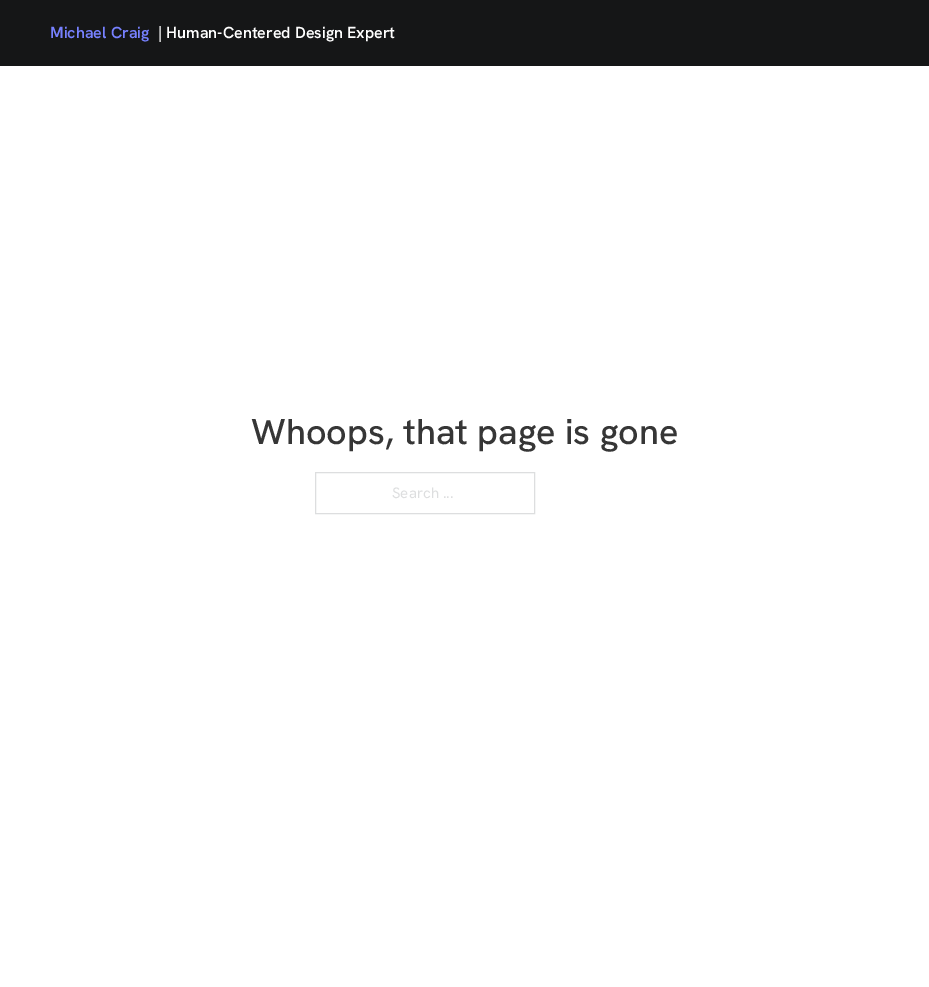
%!PS
<< /PageSize [929 987] >> setpagedevice
/C { dup -16 bitshift 255 div exch dup -8 bitshift 255 and 255 div exch 255 and 255 div setrgbcolor } def
/F { [ exch dup neg 0 0 3 -1 roll 0 0 ] selectfont } def
/T { moveto show } def
/R { rectfill } def
0 987 translate 1 -1 scale
4 setmiterlimit
16#FFFFFF C
0 0 929 987 R
16#151617 C
0 0 929 66 R
/HankenGrotesk-SemiBold 16 F
16#7781FF C
(Michael Craig) 50 38 T
16#FFFFFF C
(| Human-Centered Design Expert) 158 38 T
/HankenGrotesk-Medium 36 F
16#363636 C
(Whoops, that page is gone) 251 444 T
16#DDDEDF C
315.5 472.5 219 41 rectstroke
/HankenGrotesk-Regular 15 F
(Search ...) 392 498 T
showpage
